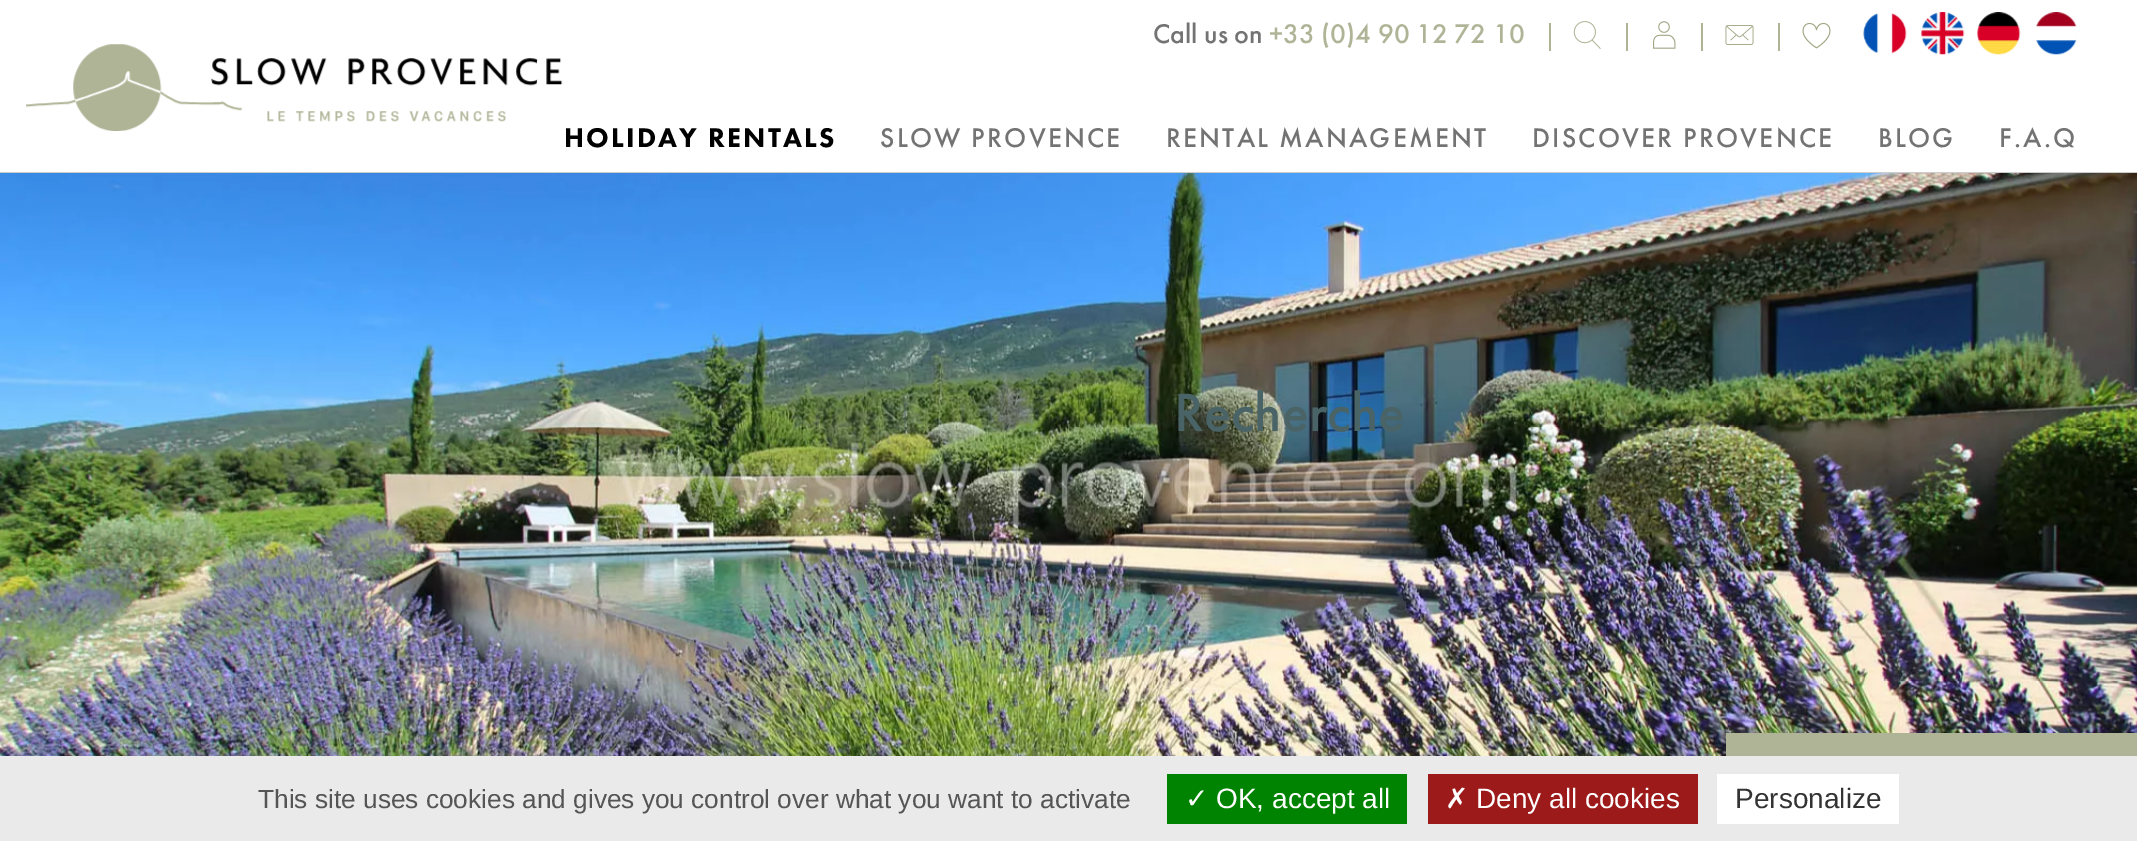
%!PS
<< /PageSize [2137 841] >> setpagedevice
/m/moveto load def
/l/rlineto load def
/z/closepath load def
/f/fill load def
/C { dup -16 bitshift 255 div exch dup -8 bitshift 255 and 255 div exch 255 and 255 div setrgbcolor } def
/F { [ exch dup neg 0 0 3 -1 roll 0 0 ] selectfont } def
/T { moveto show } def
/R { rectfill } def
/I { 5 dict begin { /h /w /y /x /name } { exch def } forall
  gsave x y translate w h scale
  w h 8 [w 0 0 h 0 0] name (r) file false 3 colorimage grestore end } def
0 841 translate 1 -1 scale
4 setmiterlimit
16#FFFFFF C
0 0 2137 841 R
16#CCCCCC C
0 172 m 0 1 l 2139 0 l 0 -171 l -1 0 l 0 170 l z f
(1.rgb) 26 44 537 87 I
/FuturaPT-Medium 28 F
16#737373 C
(Call us on) 1153 43 T
16#AFB496 C
(+33 \(0\)4 90 12 72 10) 1269 43 T
1549 23 2 28 R
(2.rgb) 1573 21 28 28 I
1626 23 2 28 R
(3.rgb) 1653 21 23 28 I
1701 23 2 28 R
(4.rgb) 1725 25 29 20 I
1778 23 2 28 R
(5.rgb) 1802 22 29 27 I
(6.rgb) 1863 13 44 41 I
(7.rgb) 1921 12 44 43 I
(8.rgb) 1977 12 44 43 I
(9.rgb) 2036 12 41 43 I
(10.rgb) 0 173 2137 583 I
/FuturaPT-Medium 56 F
16#496367 C
(Recherche) 1174 431 T
/FuturaPT-Black 28 F
16#000000 C
564 147 m 2.2 0 (HOLIDAY RENTALS) ashow
/FuturaPT-Medium 28 F
16#737373 C
880 147 m 2.2 0 (SLOW PROVENCE) ashow
1166 147 m 2.2 0 (RENTAL MANAGEMENT) ashow
1532 147 m 2.2 0 (DISCOVER PROVENCE) ashow
1878 147 m 2.2 0 (BLOG) ashow
1999 147 m 2.2 0 (F.A.Q) ashow
16#AFB496 C
1726 733 411 23 R
16#EAEAEA C
0 756 2137 85 R
/LiberationSans-Regular 26.25 F
16#555555 C
(This site uses cookies and gives you control over what you want to activate) 258 808 T
16#008300 C
1167 774 240 50 R
/DejaVuSans-Regular 28 F
16#FFFFFF C
(✓) 1185 808 T
/LiberationSans-Regular 28 F
(OK, accept all) 1216 808 T
16#9C1A1A C
1428 774 270 50 R
/DejaVuSans-Regular 28 F
16#FFFFFF C
(✗) 1445 808 T
/LiberationSans-Regular 28 F
(Deny all cookies) 1476 808 T
1717 774 182 50 R
16#333333 C
(Personalize) 1735 808 T
showpage
